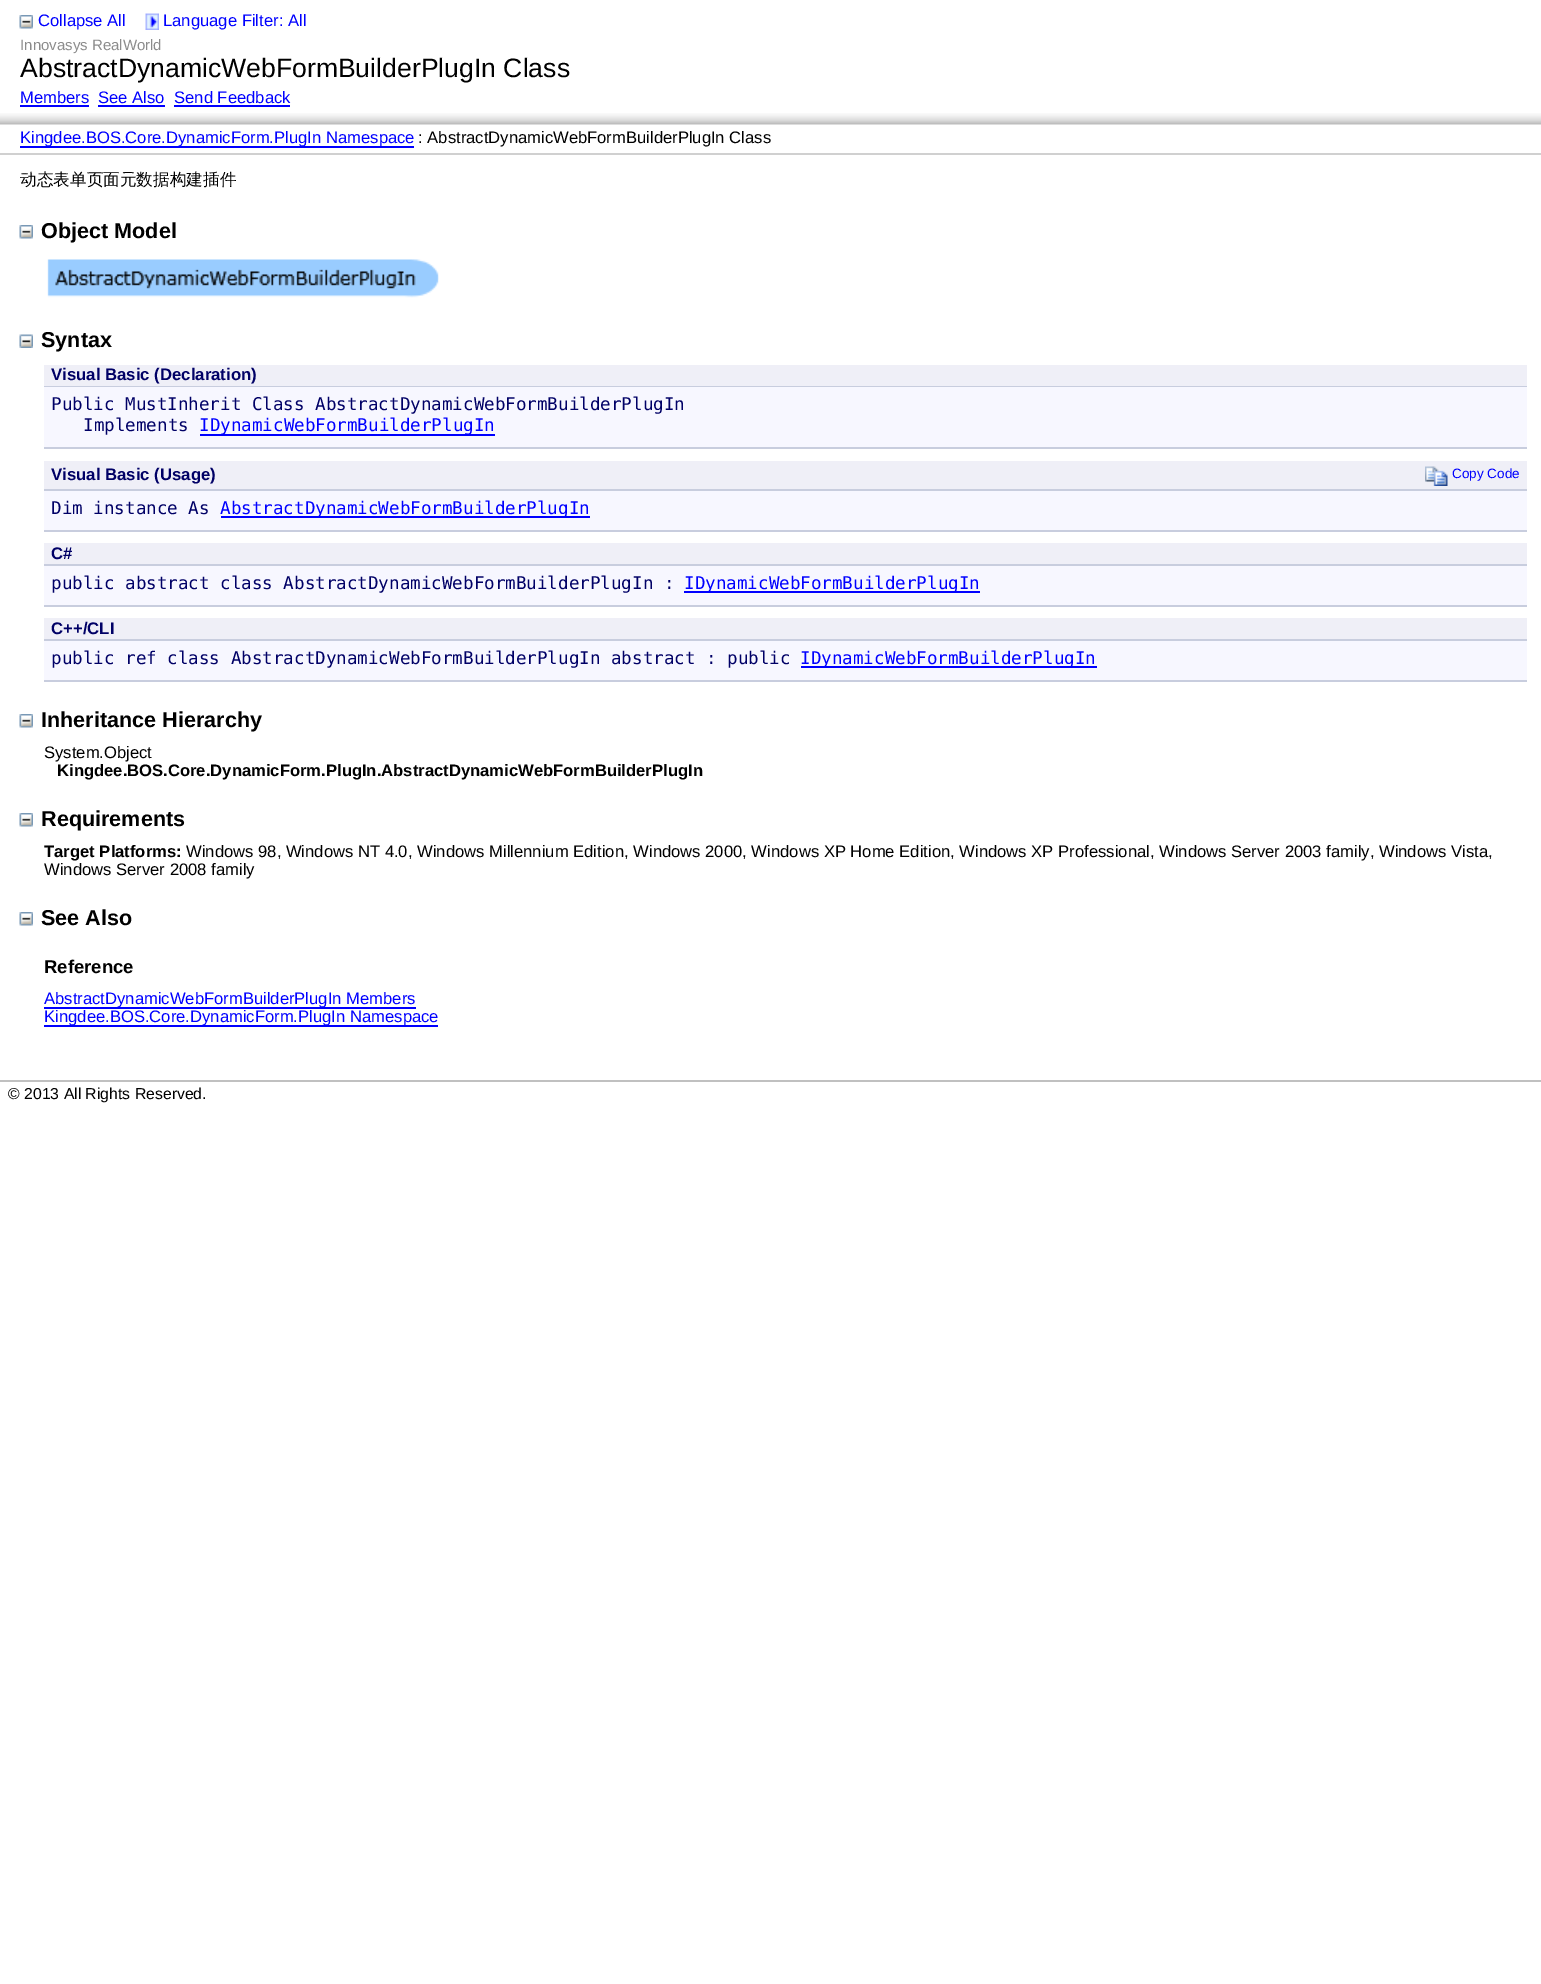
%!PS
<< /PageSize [1541 1984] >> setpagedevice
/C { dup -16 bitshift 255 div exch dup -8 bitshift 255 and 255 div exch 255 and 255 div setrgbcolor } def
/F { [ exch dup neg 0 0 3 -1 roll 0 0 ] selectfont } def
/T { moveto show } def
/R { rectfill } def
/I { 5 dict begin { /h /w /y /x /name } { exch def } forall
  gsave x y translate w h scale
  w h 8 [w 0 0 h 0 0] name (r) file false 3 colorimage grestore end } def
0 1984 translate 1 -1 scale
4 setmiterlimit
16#FFFFFF C
0 0 1541 1984 R
(1.rgb) 19 15 14 14 I
/LiberationSans-Regular 16.63 F
16#0000FF C
(Collapse All) 38 26 T
(2.rgb) 145 13 14 17 I
(Language Filter: All) 163 26 T
/LiberationSans-Regular 15 F
16#8C8C8C C
(Innovasys RealWorld) 20 50 T
/LiberationSans-Regular 26.6 F
16#000000 C
(AbstractDynamicWebFormBuilderPlugIn Class) 20 77 T
(3.rgb) 0 113 1541 12 I
/LiberationSans-Regular 16.63 F
16#0000FF C
(Members) 20 103 T
20 105 69 2 R
(See Also) 98 103 T
98 105 67 2 R
(Send Feedback) 174 103 T
174 105 116 2 R
16#D0D0D0 C
0 153 1541 2 R
16#0000FF C
20 146 394 2 R
(Kingdee.BOS.Core.DynamicForm.PlugIn Namespace) 20 143 T
16#000000 C
(: AbstractDynamicWebFormBuilderPlugIn Class) 418 143 T
/WenQuanYiZenHei-Medium 16.63 F
(动态表单页面元数据构建插件) 20 185 T
(1.rgb) 19 225 14 14 I
/LiberationSans-Bold 21.6 F
(Object Model) 41 238 T
(4.rgb) 47 259 392 39 I
(5.rgb) 19 334 14 14 I
(Syntax) 41 347 T
16#EFEFF7 C
44 365 1483 21 R
16#C8CDDE C
44 386 1483 1 R
/LiberationSans-Bold 16.75 F
16#000066 C
(Visual Basic \(Declaration\)) 51 380 T
16#F7F7FF C
44 387 1483 60 R
16#C8CDDE C
44 447 1483 2 R
/DejaVuSansMono-Regular 17.55 F
16#000066 C
(Public MustInherit Class AbstractDynamicWebFormBuilderPlugIn) 51 410 T
(Implements) 83 431 T
16#0000FF C
200 434 295 2 R
(IDynamicWebFormBuilderPlugIn) 199 431 T
16#EFEFF7 C
44 461 1483 28 R
16#C8CDDE C
44 489 1483 2 R
/LiberationSans-Bold 16.75 F
16#000066 C
(Visual Basic \(Usage\)) 51 480 T
(6.rgb) 1425 466 23 20 I
/LiberationSans-Regular 13.5 F
16#0000FF C
(Copy Code) 1452 478 T
16#F7F7FF C
44 491 1483 39 R
16#C8CDDE C
44 530 1483 2 R
/DejaVuSansMono-Regular 17.55 F
16#000066 C
(Dim instance As) 51 514 T
16#0000FF C
221 516 369 2 R
(AbstractDynamicWebFormBuilderPlugIn) 220 514 T
16#EFEFF7 C
44 543 1483 21 R
16#C8CDDE C
44 564 1483 2 R
/LiberationSans-Bold 16.75 F
16#000066 C
(C#) 51 559 T
16#F7F7FF C
44 566 1483 39 R
16#C8CDDE C
44 605 1483 2 R
/DejaVuSansMono-Regular 17.55 F
16#000066 C
(public abstract class AbstractDynamicWebFormBuilderPlugIn :) 51 589 T
16#0000FF C
684 591 296 2 R
(IDynamicWebFormBuilderPlugIn) 684 589 T
16#EFEFF7 C
44 618 1483 21 R
16#C8CDDE C
44 639 1483 2 R
/LiberationSans-Bold 16.75 F
16#000066 C
(C++/CLI) 51 634 T
16#F7F7FF C
44 641 1483 39 R
16#C8CDDE C
44 680 1483 2 R
/DejaVuSansMono-Regular 17.55 F
16#000066 C
(public ref class AbstractDynamicWebFormBuilderPlugIn abstract : public) 51 664 T
16#0000FF C
801 666 296 2 R
(IDynamicWebFormBuilderPlugIn) 800 664 T
(1.rgb) 19 714 14 14 I
/LiberationSans-Bold 21.6 F
16#000000 C
(Inheritance Hierarchy) 41 727 T
/LiberationSans-Regular 16.63 F
(System.Object) 44 758 T
/LiberationSans-Bold 16.63 F
(Kingdee.BOS.Core.DynamicForm.PlugIn.AbstractDynamicWebFormBuilderPlugIn) 57 776 T
(1.rgb) 19 813 14 14 I
/LiberationSans-Bold 21.6 F
(Requirements) 41 826 T
/LiberationSans-Bold 16.63 F
(Target Platforms:) 44 857 T
/LiberationSans-Regular 16.63 F
(Windows 98, Windows NT 4.0, Windows Millennium Edition, Windows 2000, Windows XP Home Edition, Windows XP Professional, Windows Server 2003 family, Windows Vista,) 186 857 T
(Windows Server 2008 family) 44 875 T
(1.rgb) 19 912 14 14 I
/LiberationSans-Bold 21.6 F
(See Also) 41 925 T
/LiberationSans-Bold 18.5 F
(Reference) 44 973 T
16#0000FF C
44 1007 372 2 R
/LiberationSans-Regular 16.63 F
(AbstractDynamicWebFormBuilderPlugIn Members) 44 1004 T
44 1025 394 2 R
(Kingdee.BOS.Core.DynamicForm.PlugIn Namespace) 44 1022 T
16#C0C0C0 C
0 1080 1541 2 R
/LiberationSans-Regular 15.8 F
16#000000 C
(© 2013 All Rights Reserved.) 8 1099 T
showpage
